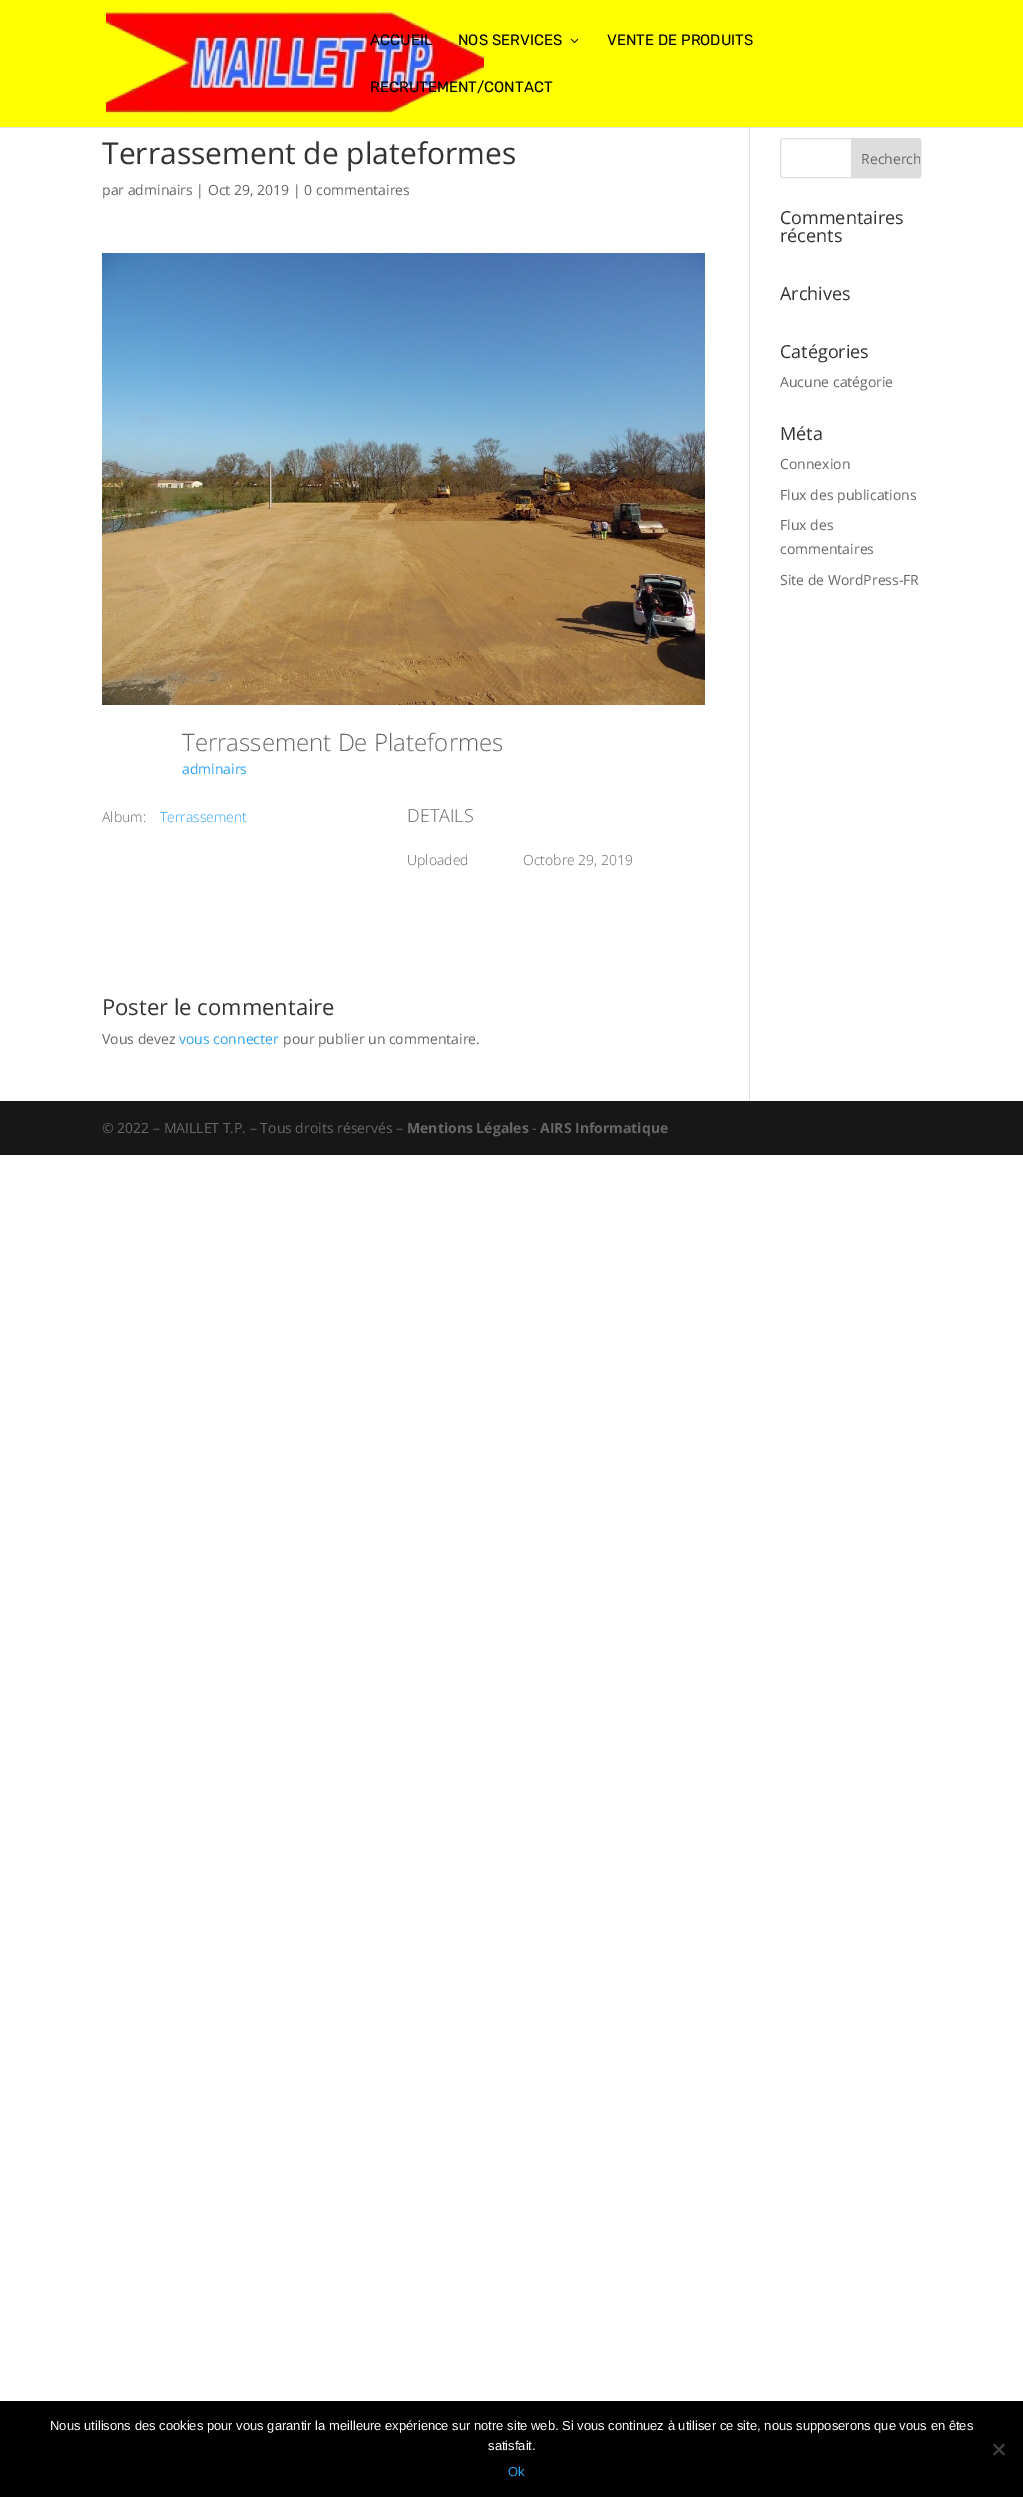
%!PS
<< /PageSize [1023 2497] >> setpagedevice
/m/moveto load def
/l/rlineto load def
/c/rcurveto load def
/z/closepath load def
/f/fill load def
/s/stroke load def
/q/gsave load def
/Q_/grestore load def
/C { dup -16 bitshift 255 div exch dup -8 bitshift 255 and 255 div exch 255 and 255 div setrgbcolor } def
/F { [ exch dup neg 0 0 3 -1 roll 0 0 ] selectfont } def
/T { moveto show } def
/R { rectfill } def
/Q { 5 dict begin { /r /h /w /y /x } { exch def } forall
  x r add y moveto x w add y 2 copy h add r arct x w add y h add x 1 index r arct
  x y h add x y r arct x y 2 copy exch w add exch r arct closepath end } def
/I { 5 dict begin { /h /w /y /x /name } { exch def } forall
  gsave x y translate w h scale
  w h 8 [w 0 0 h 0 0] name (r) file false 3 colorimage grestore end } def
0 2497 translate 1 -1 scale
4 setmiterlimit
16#FFFFFF C
0 0 1023 2497 R
16#E6E6E6 C
0 127 1023 1 R
16#FFFF01 C
0 0 1023 127 R
(1.rgb) 106 10 378 104 I
/Rubik-Regular 15 F
16#000000 C
(ACCUEIL) 370 45 T
(NOS SERVICES) 458 45 T
(2.rgb) 570 38 9 5 I
(VENTE DE PRODUITS) 607 45 T
(RECRUTEMENT/CONTACT) 370 92 T
16#E2E2E2 C
749 128 1 973 R
16#CBCBCB C
749 127 1 1 R
/OpenSans-Regular 30 F
16#333333 C
(Terrassement de plateformes) 102 164 T
/OpenSans-Regular 14 F
16#666666 C
(par adminairs | Oct 29, 2019 | 0 commentaires) 102 195 T
(3.rgb) 102 253 603 452 I
/OpenSans-Light 24 F
(Terrassement De Plateformes) 182 751 T
/OpenSans-Regular 14 F
16#2EA3F2 C
(adminairs) 182 774 T
/OpenSans-Light 14 F
16#666666 C
(Album:) 102 822 T
16#2EA3F2 C
(Terrassement) 160 822 T
/OpenSans-Light 18 F
16#666666 C
(DETAILS) 407 822 T
/OpenSans-Light 14 F
(Uploaded) 407 865 T
(Octobre 29, 2019) 523 865 T
/OpenSans-Regular 22 F
16#333333 C
(Poster le commentaire) 102 1015 T
/OpenSans-Regular 14 F
16#666666 C
(Vous devez) 102 1044 T
16#2EA3F2 C
(vous connecter) 179 1044 T
16#666666 C
(pour publier un commentaire.) 283 1044 T
16#DDDDDD C
780.5 138.5 140 39 2.5 Q s
851.5 138.5 m 66.5 0 l 1.5 0 2.5 1 2.5 2.5 c 0 34 l 0 1.5 -1 2.5 -2.5 2.5 c -66.5 0 l z q f Q_
s
q
852 139 m 66 0 l 1 0 2 1 2 2 c 0 34 l 0 1 -1 2 -2 2 c -66 0 l z clip newpath
16#666666 C
(Recherch) 861 164 T
Q_
/OpenSans-Regular 18 F
16#333333 C
(Commentaires) 780 224 T
(récents) 780 242 T
(Archives) 780 300 T
(Catégories) 780 358 T
/OpenSans-Regular 14 F
16#666666 C
(Aucune catégorie) 780 387 T
/OpenSans-Regular 18 F
16#333333 C
(Méta) 780 440 T
/OpenSans-Regular 14 F
16#666666 C
(Connexion) 780 469 T
(Flux des publications) 780 500 T
(Flux des) 780 530 T
(commentaires) 780 554 T
(Site de WordPress-FR) 780 585 T
16#171717 C
0 1101 1023 54 R
16#666666 C
(© 2022 – MAILLET T.P. – Tous droits réservés –) 102 1133 T
/OpenSans-Bold 14 F
(Mentions Légales) 407 1133 T
/OpenSans-Regular 14 F
(-) 532 1133 T
/OpenSans-Bold 14 F
(AIRS Informatique) 540 1133 T
16#000000 C
0 2401 1023 96 R
/LiberationSans-Regular 13 F
16#FFFFFF C
(Nous utilisons des cookies pour vous garantir la meilleure expérience sur notre site web. Si vous continuez à utiliser ce site, nous supposerons que vous en êtes) 50 2430 T
(satisfait.) 488 2450 T
16#404040 C
1003.5 2443.5 m 1.5 1.5 l -10.5 10.5 l -1.5 -1.5 l z f
993 2445 m 1.5 -1.5 l 10.5 10.5 l -1.5 1.5 l z f
16#2EA3F2 C
(Ok) 508 2476 T
showpage
